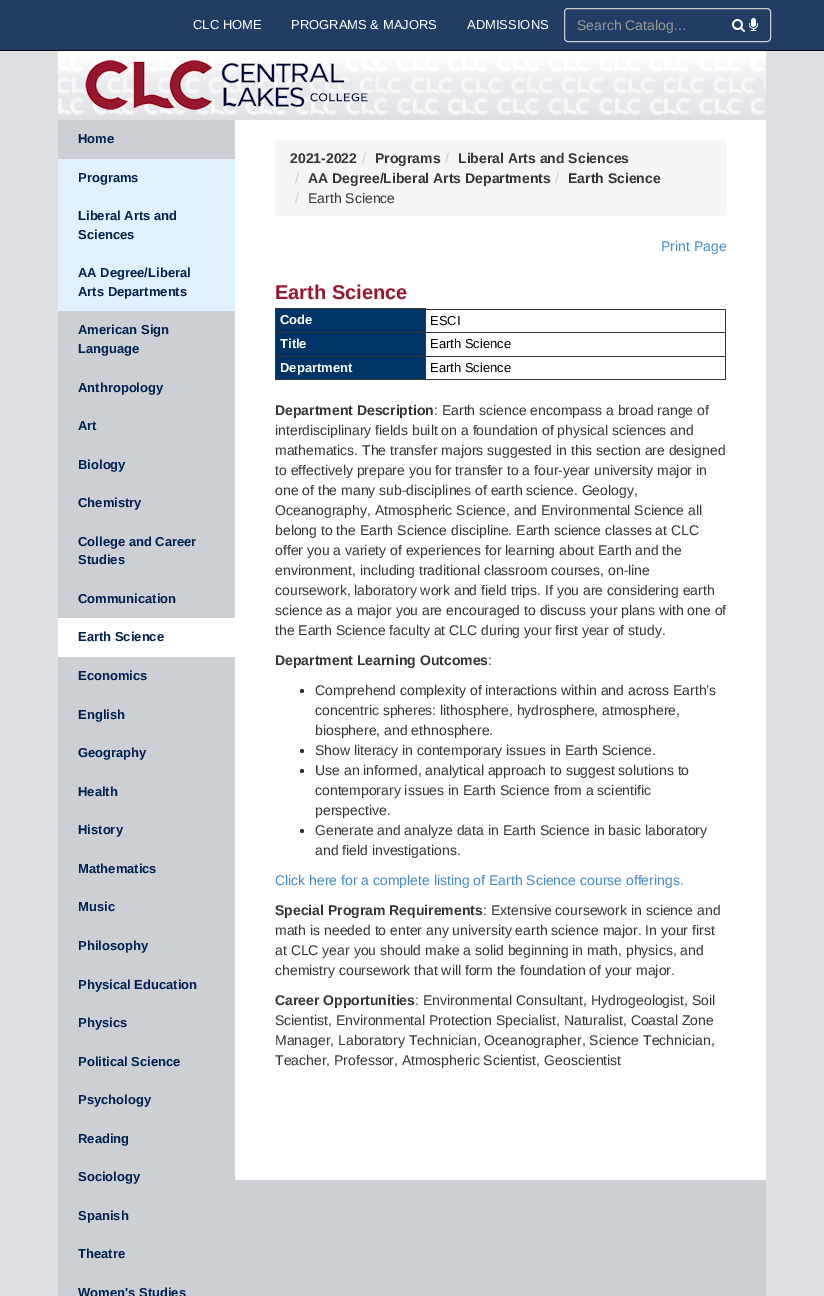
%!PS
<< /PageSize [824 1296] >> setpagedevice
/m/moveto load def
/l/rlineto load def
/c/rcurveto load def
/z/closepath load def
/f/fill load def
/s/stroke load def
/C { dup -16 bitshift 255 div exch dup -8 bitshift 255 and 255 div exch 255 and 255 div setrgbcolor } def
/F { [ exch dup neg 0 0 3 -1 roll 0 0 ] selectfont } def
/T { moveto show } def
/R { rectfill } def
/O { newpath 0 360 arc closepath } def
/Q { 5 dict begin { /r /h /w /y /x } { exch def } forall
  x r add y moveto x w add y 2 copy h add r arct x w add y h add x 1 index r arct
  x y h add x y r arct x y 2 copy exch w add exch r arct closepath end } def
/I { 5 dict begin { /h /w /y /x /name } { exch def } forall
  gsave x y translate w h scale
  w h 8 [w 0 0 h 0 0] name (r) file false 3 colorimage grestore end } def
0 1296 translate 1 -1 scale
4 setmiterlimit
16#DEDFE2 C
0 0 824 1296 R
16#213D64 C
0 0 824 50 R
16#080808 C
0 50 824 1 R
/LiberationSans-Regular 13 F
16#FFFFFF C
(CLC HOME) 193 29 T
(PROGRAMS & MAJORS) 291 29 T
(ADMISSIONS) 467 29 T
16#1F385D C
568 10 m 199 0 l 2 0 3 1 3 3 c 0 -2 -1 -4 -3 -4 c -199 0 l -2 0 -3 2 -3 4 c 0 -2 1 -3 3 -3 c z f
16#CCCCCC C
564.5 8.5 206 33 3.5 Q s
/LiberationSans-Regular 14 F
16#999999 C
(Search Catalog…) 577 30 T
(1.rgb) 732 19 13 13 I
(2.rgb) 749 18 9 13 I
16#CCD0D5 C
58 120 708 1176 R
(3.rgb) 58 51 708 65 I
(4.rgb) 85 60 283 50 I
/LiberationSans-Bold 13 F
16#00204E C
(Home) 78 143 T
16#E0F0FF C
58 159 177 152 R
16#00204E C
(Programs) 78 182 T
(Liberal Arts and) 78 220 T
(Sciences) 78 239 T
(AA Degree/Liberal) 78 277 T
(Arts Departments) 78 296 T
(American Sign) 78 334 T
(Language) 78 353 T
(Anthropology) 78 392 T
(Art) 78 430 T
(Biology) 78 469 T
(Chemistry) 78 507 T
(College and Career) 78 546 T
(Studies) 78 564 T
(Communication) 78 603 T
16#FFFFFF C
58 618 177 39 R
16#00204E C
(Earth Science) 78 641 T
(Economics) 78 680 T
(English) 78 719 T
(Geography) 78 757 T
(Health) 78 796 T
(History) 78 834 T
(Mathematics) 78 873 T
(Music) 78 911 T
(Philosophy) 78 950 T
(Physical Education) 78 989 T
(Physics) 78 1027 T
(Political Science) 78 1066 T
(Psychology) 78 1104 T
(Reading) 78 1143 T
(Sociology) 78 1181 T
(Spanish) 78 1220 T
(Theatre) 78 1258 T
(Women's Studies) 78 1297 T
16#FFFFFF C
235 120 531 1060 R
16#F5F5F5 C
275 140 451 76 4 Q f
/LiberationSans-Bold 14 F
16#353535 C
(2021-2022) 290 163 T
/LiberationSans-Regular 14 F
16#CCCCCC C
(/) 362 163 T
/LiberationSans-Bold 14 F
16#353535 C
(Programs) 375 163 T
/LiberationSans-Regular 14 F
16#CCCCCC C
(/) 445 163 T
/LiberationSans-Bold 14 F
16#353535 C
(Liberal Arts and Sciences) 458 163 T
/LiberationSans-Regular 14 F
16#CCCCCC C
(/) 295 183 T
/LiberationSans-Bold 14 F
16#353535 C
(AA Degree/Liberal Arts Departments) 308 183 T
/LiberationSans-Regular 14 F
16#CCCCCC C
(/) 555 183 T
/LiberationSans-Bold 14 F
16#353535 C
(Earth Science) 568 183 T
/LiberationSans-Regular 14 F
16#CCCCCC C
(/) 295 203 T
16#353535 C
(Earth Science) 308 203 T
16#428BCA C
(Print Page) 661 251 T
/LiberationSans-Bold 20 F
16#96172E C
(Earth Science) 275 299 T
16#003366 C
276 309 149 23 R
16#353535 C
275 308 151 1 R
425 309 301 1 R
725 309 1 24 R
275 332 451 1 R
275 356 451 1 R
725 356 1 24 R
425 379 301 1 R
425 356 1 24 R
425 332 1 25 R
425 308 1 25 R
275 379 151 1 R
275 356 1 24 R
275 332 1 25 R
275 308 1 25 R
/LiberationSans-Bold 13 F
16#FFFFFF C
(Code) 280 324 T
/LiberationSans-Regular 13 F
16#000000 C
(ESCI) 430 325 T
16#003366 C
276 333 149 23 R
/LiberationSans-Bold 13 F
16#FFFFFF C
(Title) 280 348 T
16#353535 C
725 332 1 25 R
/LiberationSans-Regular 13 F
16#000000 C
(Earth Science) 430 348 T
16#003366 C
276 357 149 22 R
/LiberationSans-Bold 13 F
16#FFFFFF C
(Department) 280 372 T
/LiberationSans-Regular 13 F
16#000000 C
(Earth Science) 430 372 T
/LiberationSans-Bold 14 F
16#353535 C
(Department Description) 275 415 T
/LiberationSans-Regular 14 F
(: Earth science encompass a broad range of) 434 415 T
(interdisciplinary fields built on a foundation of physical sciences and) 275 435 T
(mathematics. The transfer majors suggested in this section are designed) 275 455 T
(to effectively prepare you for transfer to a four-year university major in) 275 475 T
(one of the many sub-disciplines of earth science. Geology,) 275 495 T
(Oceanography, Atmospheric Science, and Environmental Science all) 275 515 T
(belong to the Earth Science discipline. Earth science classes at CLC) 275 535 T
(offer you a variety of experiences for learning about Earth and the) 275 555 T
(environment, including traditional classroom courses, on-line) 275 575 T
(coursework, laboratory work and field trips. If you are considering earth) 275 595 T
(science as a major you are encouraged to discuss your plans with one of) 275 615 T
(the Earth Science faculty at CLC during your first year of study.) 275 635 T
/LiberationSans-Bold 14 F
(Department Learning Outcomes) 275 665 T
/LiberationSans-Regular 14 F
(:) 488 665 T
16#333333 C
302 691 2 O f
16#353535 C
(Comprehend complexity of interactions within and across Earth’s) 315 695 T
(concentric spheres: lithosphere, hydrosphere, atmosphere,) 315 715 T
(biosphere, and ethnosphere.) 315 735 T
16#333333 C
302 751 2 O f
16#353535 C
(Show literacy in contemporary issues in Earth Science.) 315 755 T
16#333333 C
302 771 2 O f
16#353535 C
(Use an informed, analytical approach to suggest solutions to) 315 775 T
(contemporary issues in Earth Science from a scientific) 315 795 T
(perspective.) 315 815 T
16#333333 C
302 831 2 O f
16#353535 C
(Generate and analyze data in Earth Science in basic laboratory) 315 835 T
(and field investigations.) 315 855 T
16#428BCA C
(Click here for a complete listing of Earth Science course offerings.) 275 885 T
/LiberationSans-Bold 14 F
16#353535 C
(Special Program Requirements) 275 915 T
/LiberationSans-Regular 14 F
(: Extensive coursework in science and) 483 915 T
(math is needed to enter any university earth science major. In your first) 275 935 T
(at CLC year you should make a solid beginning in math, physics, and) 275 955 T
(chemistry coursework that will form the foundation of your major.) 275 975 T
/LiberationSans-Bold 14 F
(Career Opportunities) 275 1005 T
/LiberationSans-Regular 14 F
(: Environmental Consultant, Hydrogeologist, Soil) 415 1005 T
(Scientist, Environmental Protection Specialist, Naturalist, Coastal Zone) 275 1025 T
(Manager, Laboratory Technician, Oceanographer, Science Technician,) 275 1045 T
(Teacher, Professor, Atmospheric Scientist, Geoscientist) 275 1065 T
showpage
